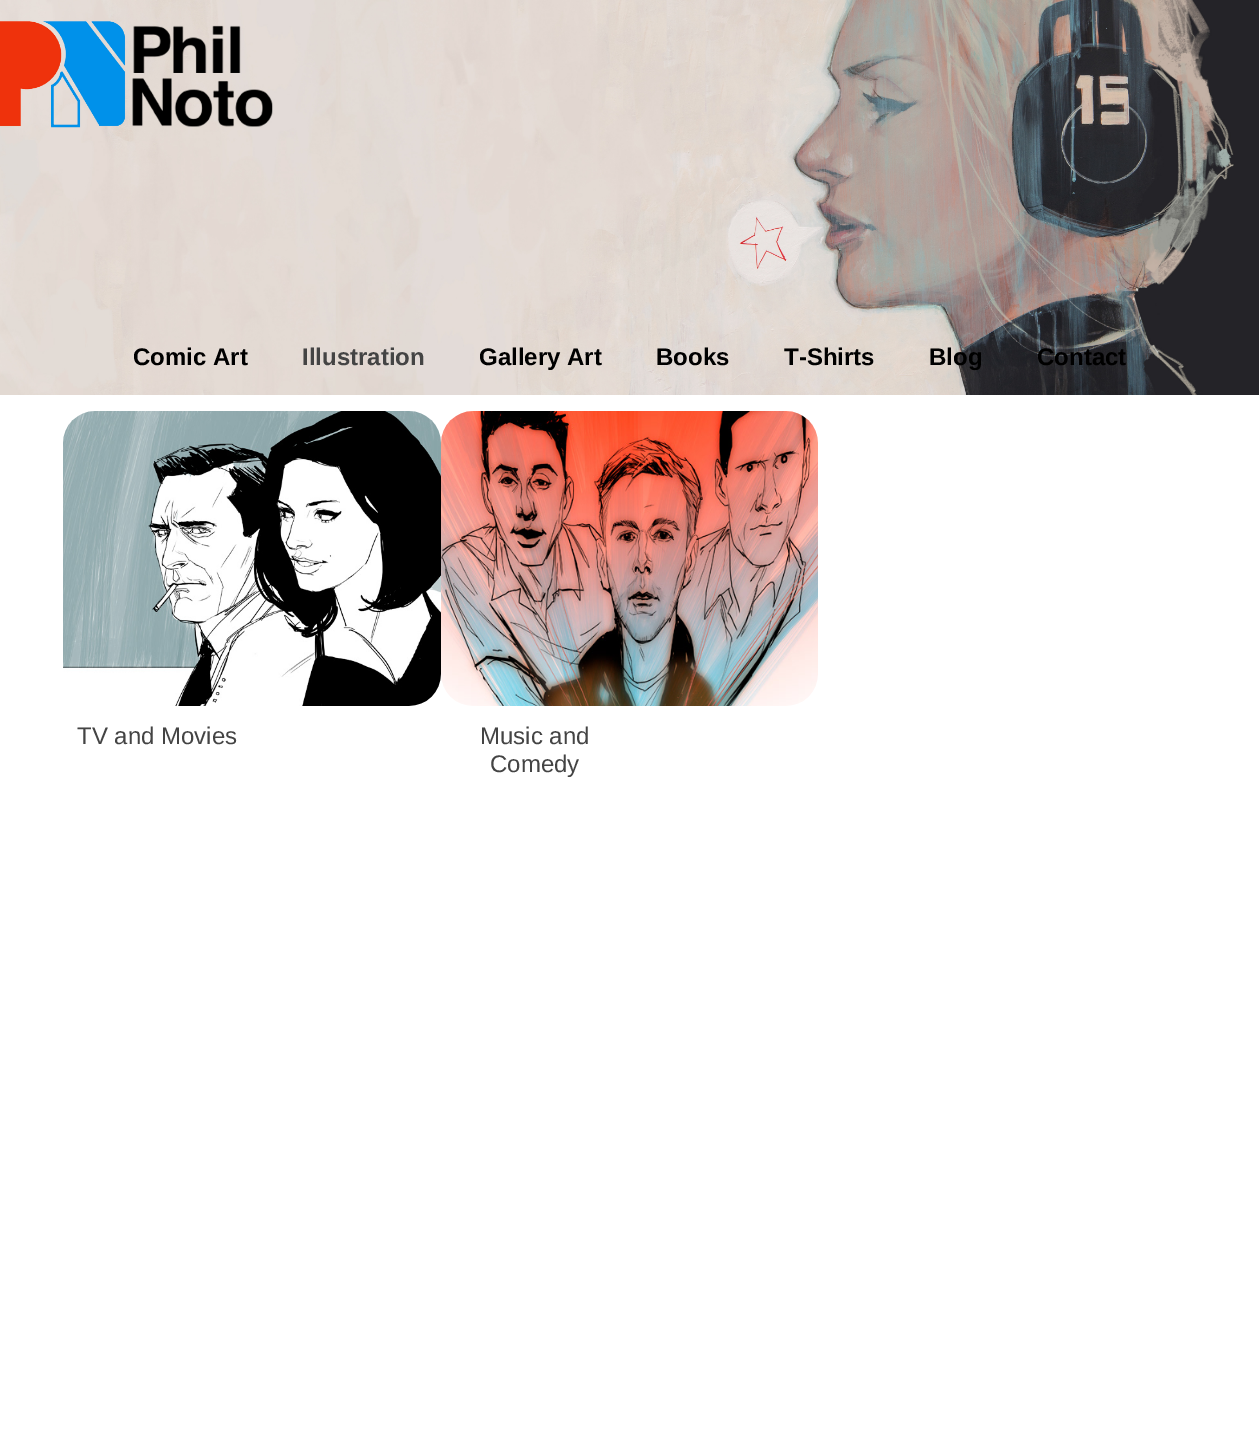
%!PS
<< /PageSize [1259 1436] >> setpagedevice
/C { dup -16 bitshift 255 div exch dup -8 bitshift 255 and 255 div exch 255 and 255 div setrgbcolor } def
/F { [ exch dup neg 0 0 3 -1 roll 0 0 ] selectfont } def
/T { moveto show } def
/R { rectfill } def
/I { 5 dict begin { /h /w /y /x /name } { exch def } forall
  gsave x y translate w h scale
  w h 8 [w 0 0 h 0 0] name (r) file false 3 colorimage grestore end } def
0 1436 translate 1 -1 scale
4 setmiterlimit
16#FFFFFF C
0 0 1259 1436 R
(1.rgb) 0 0 1259 395 I
/LiberationSans-Bold 24 F
16#000000 C
(Comic Art) 133 365 T
16#444444 C
(Illustration) 302 365 T
16#000000 C
(Gallery Art) 479 365 T
(Books) 656 365 T
(T-Shirts) 784 365 T
(Blog) 929 365 T
(Contact) 1037 365 T
(2.rgb) 63 411 378 295 I
/LiberationSans-Regular 24 F
16#444444 C
(TV and Movies) 77 744 T
(3.rgb) 441 411 377 295 I
(Music and) 480 744 T
(Comedy) 490 772 T
showpage
